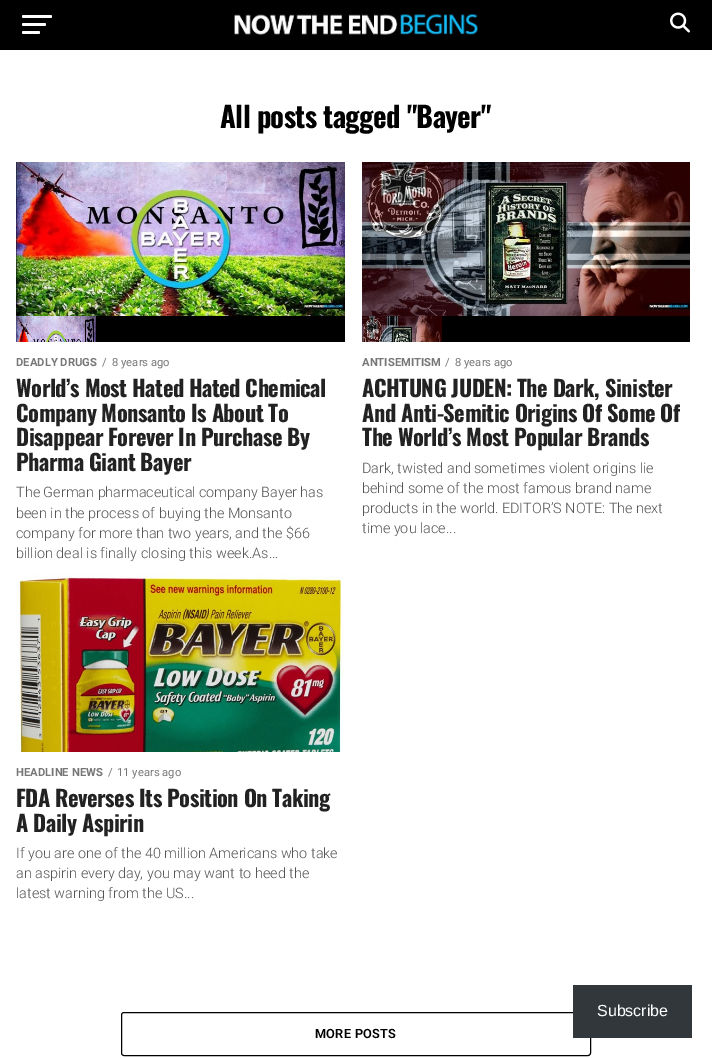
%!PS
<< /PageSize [712 1058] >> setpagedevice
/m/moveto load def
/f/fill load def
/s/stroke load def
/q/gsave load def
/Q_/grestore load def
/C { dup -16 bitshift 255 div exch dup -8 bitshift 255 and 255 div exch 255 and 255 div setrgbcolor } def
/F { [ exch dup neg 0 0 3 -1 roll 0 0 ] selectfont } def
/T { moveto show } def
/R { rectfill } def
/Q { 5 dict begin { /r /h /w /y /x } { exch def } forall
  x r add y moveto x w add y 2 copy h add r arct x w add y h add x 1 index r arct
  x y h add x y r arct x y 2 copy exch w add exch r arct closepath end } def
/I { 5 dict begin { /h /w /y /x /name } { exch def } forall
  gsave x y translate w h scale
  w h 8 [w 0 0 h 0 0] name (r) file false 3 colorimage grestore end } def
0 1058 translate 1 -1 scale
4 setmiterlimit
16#FFFFFF C
0 0 712 1058 R
16#000000 C
0 0 712 50 R
16#FFFFFF C
22 15 30 3 1.5 Q f
22 23 24 3 1.5 Q f
22 31 18 3 1.5 Q f
(1.rgb) 234 10 245 26 I
(2.rgb) 670 12 20 21 I
/Oswald-Bold 28.75 F
16#000000 C
220 128 m -.6 0 (All posts tagged "Bayer") ashow
96 316 249 26 R
(3.rgb) 16 162 329 154 I
(4.rgb) 16 316 80 26 I
/Roboto-Bold 11.25 F
16#777777 C
(DEADLY DRUGS) 16 366 T
/Roboto-Regular 11.25 F
(/) 102 366 T
(8 years ago) 112 366 T
/Oswald-Bold 22.4 F
16#222222 C
16 397 m -.45 0 (World’s Most Hated Hated Chemical) ashow
16 422 m -.45 0 (Company Monsanto Is About To) ashow
16 446 m -.45 0 (Disappear Forever In Purchase By) ashow
16 471 m -.45 0 (Pharma Giant Bayer) ashow
/Roboto-Light 14.4 F
16#555555 C
(The German pharmaceutical company Bayer has) 16 497 T
(been in the process of buying the Monsanto) 16 518 T
(company for more than two years, and the $66) 16 538 T
(billion deal is finally closing this week.As...) 16 558 T
16#000000 C
442 316 248 26 R
(5.rgb) 362 162 328 154 I
(6.rgb) 362 316 80 26 I
/Roboto-Bold 11.25 F
16#777777 C
(ANTISEMITISM) 362 366 T
/Roboto-Regular 11.25 F
(/) 445 366 T
(8 years ago) 455 366 T
/Oswald-Bold 22.4 F
16#222222 C
362 397 m -.45 0 (ACHTUNG JUDEN: The Dark, Sinister) ashow
362 422 m -.45 0 (And Anti-Semitic Origins Of Some Of) ashow
q
362 162 328 400 rectclip
362 446 m -.45 0 (The World’s Most Popular Brands) ashow
Q_
/Roboto-Light 14.4 F
16#555555 C
(Dark, twisted and sometimes violent origins lie) 362 473 T
(behind some of the most famous brand name) 362 493 T
(products in the world. EDITOR’S NOTE: The next) 362 513 T
(time you lace...) 362 533 T
(7.rgb) 16 572 329 180 I
/Roboto-Bold 11.25 F
16#777777 C
(HEADLINE NEWS) 16 776 T
/Roboto-Regular 11.25 F
(/) 108 776 T
(11 years ago) 117 776 T
/Oswald-Bold 22.4 F
16#222222 C
16 807 m -.45 0 (FDA Reverses Its Position On Taking) ashow
16 832 m -.45 0 (A Daily Aspirin) ashow
/Roboto-Light 14.4 F
16#555555 C
(If you are one of the 40 million Americans who take) 16 858 T
(an aspirin every day, you may want to heed the) 16 878 T
(latest warning from the US...) 16 898 T
16#000000 C
121.5 1012.5 469 43 2.5 Q s
/Roboto-SemiBold 12.75 F
315 1038 m .25 0 (MORE POSTS) ashow
16#32373C C
573 985 119 53 R
/LiberationSans-Regular 16 F
16#FFFFFF C
(Subscribe) 597 1016 T
showpage
